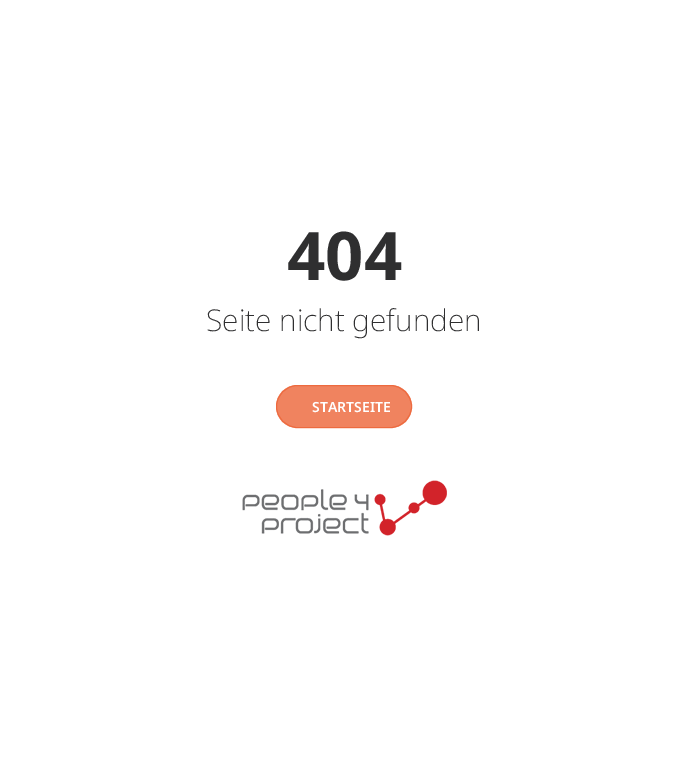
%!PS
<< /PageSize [688 784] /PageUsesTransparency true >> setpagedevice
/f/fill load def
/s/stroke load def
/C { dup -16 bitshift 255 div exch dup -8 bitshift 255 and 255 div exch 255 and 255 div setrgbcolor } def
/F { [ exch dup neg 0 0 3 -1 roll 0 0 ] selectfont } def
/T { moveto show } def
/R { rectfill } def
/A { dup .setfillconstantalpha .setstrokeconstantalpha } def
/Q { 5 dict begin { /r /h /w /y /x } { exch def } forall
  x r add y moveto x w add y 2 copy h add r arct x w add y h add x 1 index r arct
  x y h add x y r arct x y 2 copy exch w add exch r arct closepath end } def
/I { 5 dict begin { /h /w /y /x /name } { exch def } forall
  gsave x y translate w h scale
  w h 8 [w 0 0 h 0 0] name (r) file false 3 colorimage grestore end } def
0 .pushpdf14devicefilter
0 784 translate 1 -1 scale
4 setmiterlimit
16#FFFFFF C
0 0 688 784 R
/NotoSans-Bold 67 F
16#2F2F30 C
(404) 287 280 T
/NotoSans-ExtraLight 30 F
(Seite nicht gefunden) 206 331 T
16#F0835F C
276 385 136 43 21.5 Q f
0.8 A
16#EC6437 C
276.5 385.5 135 42 21 Q s
/NotoSans-SemiBold 14 F
1 A
16#FFFFFF C
(STARTSEITE) 312 412 T
(1.rgb) 242 480 205 56 I
.poppdf14devicefilter showpage
